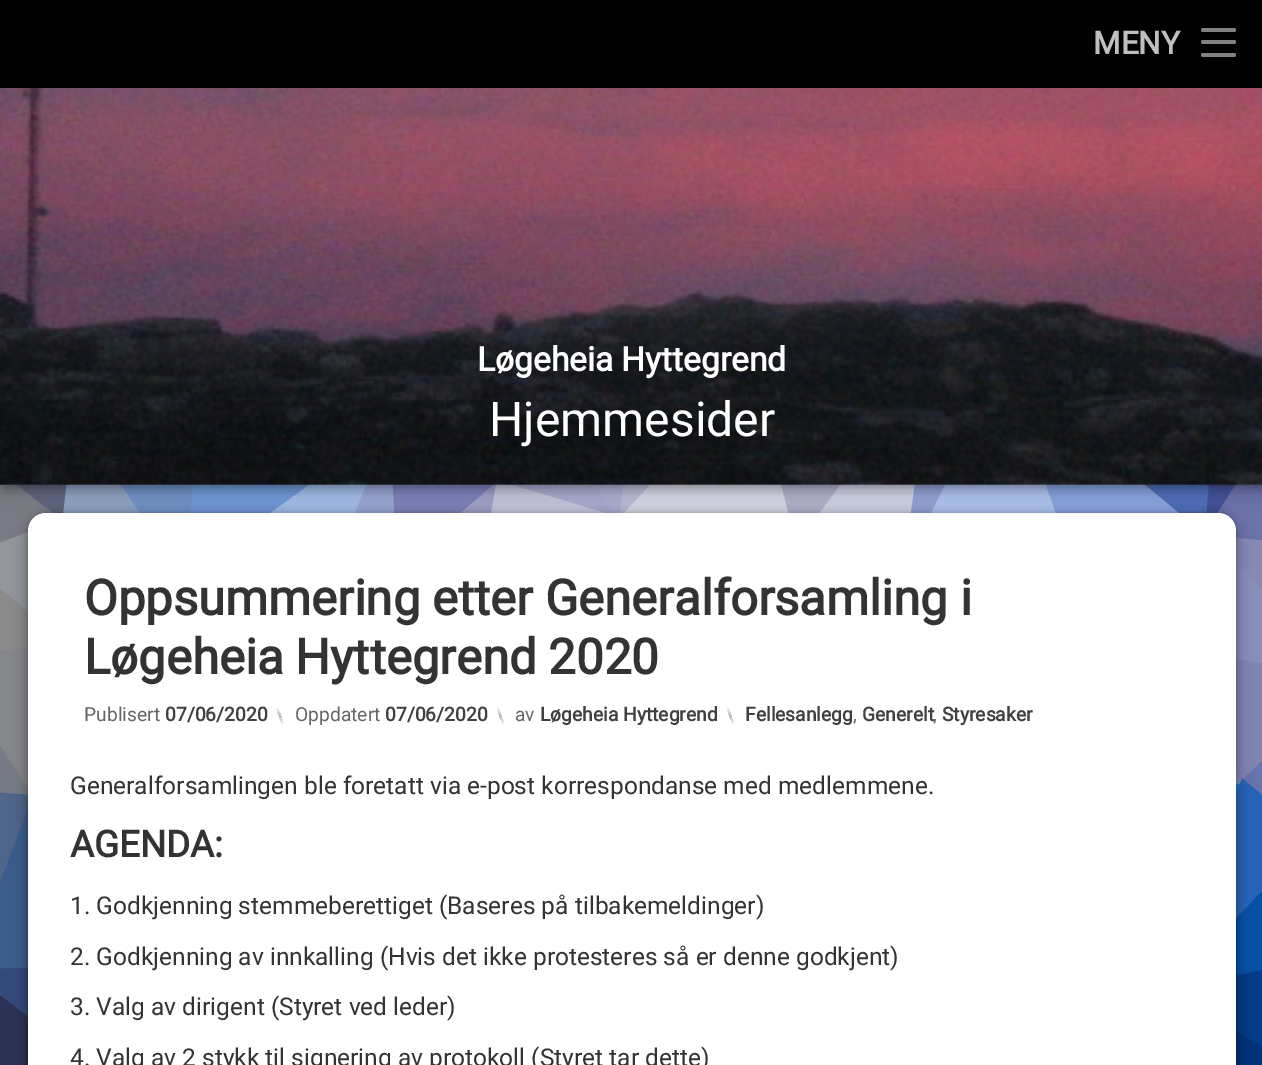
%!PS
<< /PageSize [1262 1065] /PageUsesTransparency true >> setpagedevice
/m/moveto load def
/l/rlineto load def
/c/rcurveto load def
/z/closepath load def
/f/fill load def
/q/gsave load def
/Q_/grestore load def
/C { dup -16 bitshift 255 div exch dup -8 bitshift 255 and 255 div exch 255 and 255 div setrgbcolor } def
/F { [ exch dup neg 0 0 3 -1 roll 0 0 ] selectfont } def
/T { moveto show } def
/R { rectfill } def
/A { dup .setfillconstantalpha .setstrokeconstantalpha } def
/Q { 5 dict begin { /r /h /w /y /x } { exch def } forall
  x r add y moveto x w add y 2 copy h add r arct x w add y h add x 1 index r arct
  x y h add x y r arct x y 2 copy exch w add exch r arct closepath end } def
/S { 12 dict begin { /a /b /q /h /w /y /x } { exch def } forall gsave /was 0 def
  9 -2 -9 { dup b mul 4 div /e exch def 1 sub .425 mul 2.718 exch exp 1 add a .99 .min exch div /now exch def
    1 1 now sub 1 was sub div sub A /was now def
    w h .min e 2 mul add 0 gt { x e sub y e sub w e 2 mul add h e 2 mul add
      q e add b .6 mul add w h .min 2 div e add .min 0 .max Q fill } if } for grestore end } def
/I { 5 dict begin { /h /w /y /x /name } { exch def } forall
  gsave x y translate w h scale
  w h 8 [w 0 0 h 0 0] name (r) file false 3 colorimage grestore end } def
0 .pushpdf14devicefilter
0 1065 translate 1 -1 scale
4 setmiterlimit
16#FFFFFF C
0 0 1262 1065 R
(2.rgb) 0 484 1262 581 I
16#000000 C
4 91 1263 397 0 6 .3 S
28 513 1208 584 18 4.5 .25 S
28 522 1208 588 18 9 .25 S
16#FFFFFF C
46 513 m 1172 0 l 10 0 18 8 18 18 c 0 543 l 0 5 -4 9 -9 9 c -1190 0 l -5 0 -9 -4 -9 -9 c 0 -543 l 0 -10 8 -18 18 -18 c z f
16#000000 C
0 88 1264 397 0 13 .2 S
0 0 1262 88 R
/Roboto-Bold 31.5 F
16#BFBFBF C
(MENY) 1093 54 T
16#808080 C
1201 28 35 4 2 Q f
1201 40 35 4 2 Q f
1201 53 35 4 2 Q f
(1.rgb) 0 88 1262 397 I
/Roboto-Bold 33.5 F
16#FFFFFF C
(Løgeheia Hyttegrend) 477 371 T
/Roboto-Regular 48 F
(Hjemmesider) 489 436 T
/Roboto-Bold 49 F
16#333333 C
(Oppsummering etter Generalforsamling i) 84 615 T
(Løgeheia Hyttegrend 2020) 84 674 T
/Roboto-Regular 19.25 F
16#666666 C
(Publisert) 84 721 T
/Roboto-Bold 19.25 F
16#404040 C
(07/06/2020) 165 721 T
q 276 707.5 m 1.5 -.5 l 6.5 18 l -1.5 .5 l z clip newpath
<< /ShadingType 2 /ColorSpace /DeviceRGB /Coords [277 707 283 725] /Extend [true true] /Function << /FunctionType 3 /Domain [0 1] /Functions [<< /FunctionType 2 /Domain [0 1] /C0 [1 1 1] /C1 [.733 .733 .733] /N 1 >> << /FunctionType 2 /Domain [0 1] /C0 [.733 .733 .733] /C1 [1 1 1] /N 1 >>] /Bounds [.5] /Encode [0 1 0 1] >> >> shfill Q_
/Roboto-Regular 19.25 F
16#666666 C
(Oppdatert) 295 721 T
/Roboto-Bold 19.25 F
16#404040 C
(07/06/2020) 385 721 T
q 496.5 707.5 m 1.5 -.5 l 6.5 18 l -1.5 .5 l z clip newpath
<< /ShadingType 2 /ColorSpace /DeviceRGB /Coords [497 707 504 725] /Extend [true true] /Function << /FunctionType 3 /Domain [0 1] /Functions [<< /FunctionType 2 /Domain [0 1] /C0 [1 1 1] /C1 [.733 .733 .733] /N 1 >> << /FunctionType 2 /Domain [0 1] /C0 [.733 .733 .733] /C1 [1 1 1] /N 1 >>] /Bounds [.5] /Encode [0 1 0 1] >> >> shfill Q_
/Roboto-Regular 19.25 F
16#666666 C
(av) 515 721 T
/Roboto-Bold 19.25 F
16#404040 C
(Løgeheia Hyttegrend) 540 721 T
q 726.5 707.5 m 1.5 -.5 l 6.5 18 l -1.5 .5 l z clip newpath
<< /ShadingType 2 /ColorSpace /DeviceRGB /Coords [727 707 734 725] /Extend [true true] /Function << /FunctionType 3 /Domain [0 1] /Functions [<< /FunctionType 2 /Domain [0 1] /C0 [1 1 1] /C1 [.733 .733 .733] /N 1 >> << /FunctionType 2 /Domain [0 1] /C0 [.733 .733 .733] /C1 [1 1 1] /N 1 >>] /Bounds [.5] /Encode [0 1 0 1] >> >> shfill Q_
(Fellesanlegg) 745 721 T
/Roboto-Regular 19.25 F
16#666666 C
(,) 853 721 T
/Roboto-Bold 19.25 F
16#404040 C
(Generelt) 862 721 T
/Roboto-Regular 19.25 F
16#666666 C
(,) 933 721 T
/Roboto-Bold 19.25 F
16#404040 C
(Styresaker) 942 721 T
/Roboto-Regular 24.5 F
16#333333 C
(Generalforsamlingen ble foretatt via e-post korrespondanse med medlemmene.) 70 794 T
/Roboto-Bold 36.75 F
(AGENDA:) 70 857 T
/Roboto-Regular 24.5 F
(1. Godkjenning stemmeberettiget \(Baseres på tilbakemeldinger\)) 70 914 T
(2. Godkjenning av innkalling \(Hvis det ikke protesteres så er denne godkjent\)) 70 965 T
(3. Valg av dirigent \(Styret ved leder\)) 70 1015 T
(4. Valg av 2 stykk til signering av protokoll \(Styret tar dette\)) 70 1066 T
.poppdf14devicefilter showpage
